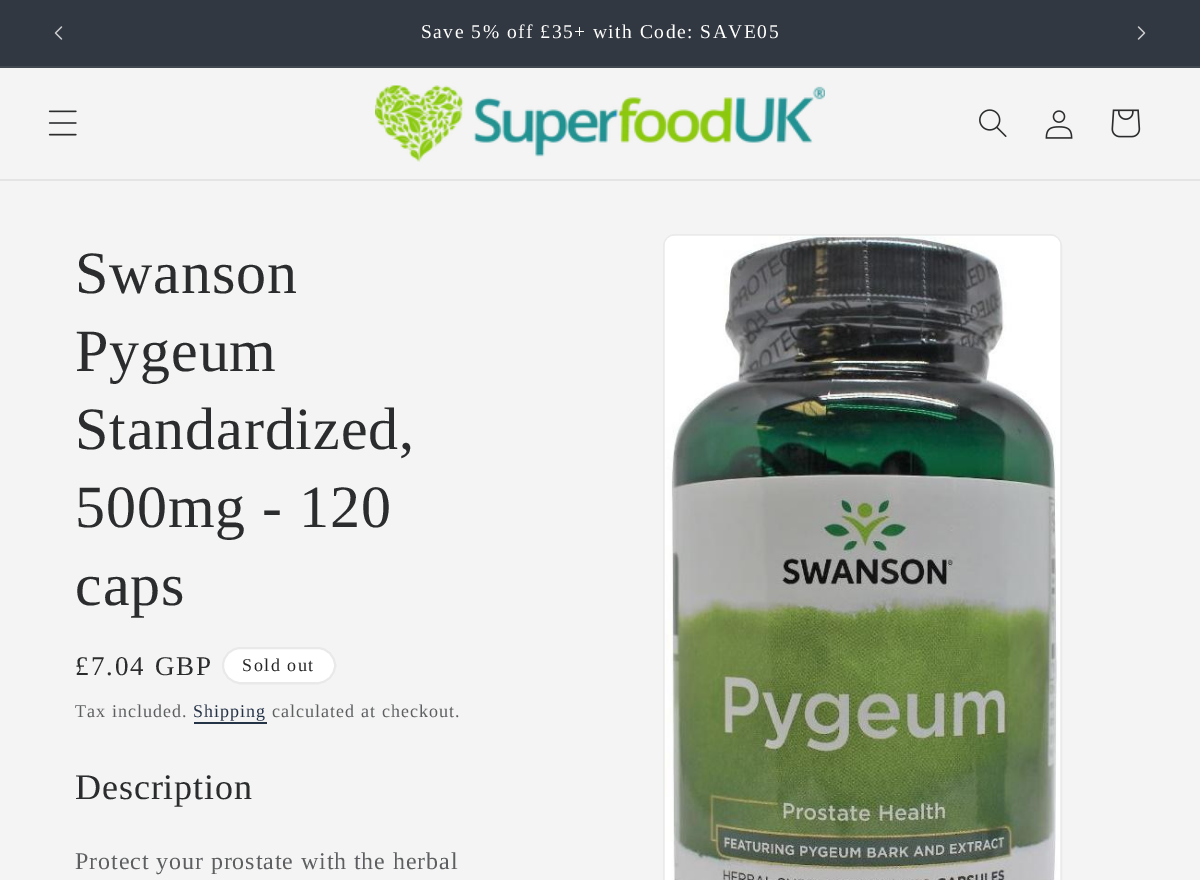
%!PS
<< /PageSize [1200 880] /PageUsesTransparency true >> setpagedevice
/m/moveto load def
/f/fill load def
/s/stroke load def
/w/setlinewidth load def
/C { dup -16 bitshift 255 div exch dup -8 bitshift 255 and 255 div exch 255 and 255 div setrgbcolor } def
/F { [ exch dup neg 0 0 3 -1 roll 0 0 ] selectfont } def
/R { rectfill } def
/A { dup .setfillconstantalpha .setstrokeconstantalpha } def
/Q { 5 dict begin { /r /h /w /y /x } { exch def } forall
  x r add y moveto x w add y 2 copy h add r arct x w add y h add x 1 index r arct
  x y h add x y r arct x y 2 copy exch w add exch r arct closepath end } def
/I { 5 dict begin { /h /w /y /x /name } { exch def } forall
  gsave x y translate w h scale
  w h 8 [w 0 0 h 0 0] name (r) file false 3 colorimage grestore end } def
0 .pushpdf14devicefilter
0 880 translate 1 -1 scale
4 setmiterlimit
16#F4F4F4 C
0 0 1200 880 R
16#323841 C
0 0 1200 66 R
16#424850 C
0 66 1200 2 R
(1.rgb) 54 26 9 14 I
/LiberationSerif-Regular 19.5 F
16#FFFFFF C
421 38 m 1.5 0 (Save 5% off £35+ with Code: SAVE05) ashow
(2.rgb) 1137 26 9 14 I
16#E4E4E4 C
0 179 1200 2 R
(3.rgb) 48 110 29 26 I
(4.rgb) 375 85 450 77 I
(5.rgb) 979 109 28 28 I
(6.rgb) 1045 110 28 29 I
(7.rgb) 1111 109 30 29 I
/LiberationSerif-Regular 60 F
16#2B2C2D C
75 293 m .9 0 (Swanson) ashow
75 371 m .9 0 (Pygeum) ashow
75 449 m .9 0 (Standardized,) ashow
75 527 m .9 0 (500mg - 120) ashow
75 605 m .9 0 (caps) ashow
/LiberationSerif-Regular 27 F
75 675 m 2 0 (£7.04 GBP) ashow
16#FFFFFF C
222 647 114 37 18.5 Q f
0.1 A
16#262626 C
2 w
223 648 112 35 17.5 Q s
/LiberationSerif-Regular 18 F
1 A
242 671 m 1.5 0 (Sold out) ashow
16#5D5E5F C
75 717 m 1.05 0 (Tax included.) ashow
16#253347 C
193 717 m 1.05 0 (Shipping) ashow
194 722 73 2 R
16#5D5E5F C
272 717 m 1.05 0 (calculated at checkout.) ashow
/LiberationSerif-Regular 36 F
16#2B2C2D C
75 799 m .9 0 (Description) ashow
/LiberationSerif-Regular 24 F
16#5D5E5F C
75 869 m .9 0 (Protect your prostate with the herbal) ashow
16#EAEAEA C
664 235 397 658 11 Q s
(8.rgb) 664 235 397 645 I
.poppdf14devicefilter showpage
